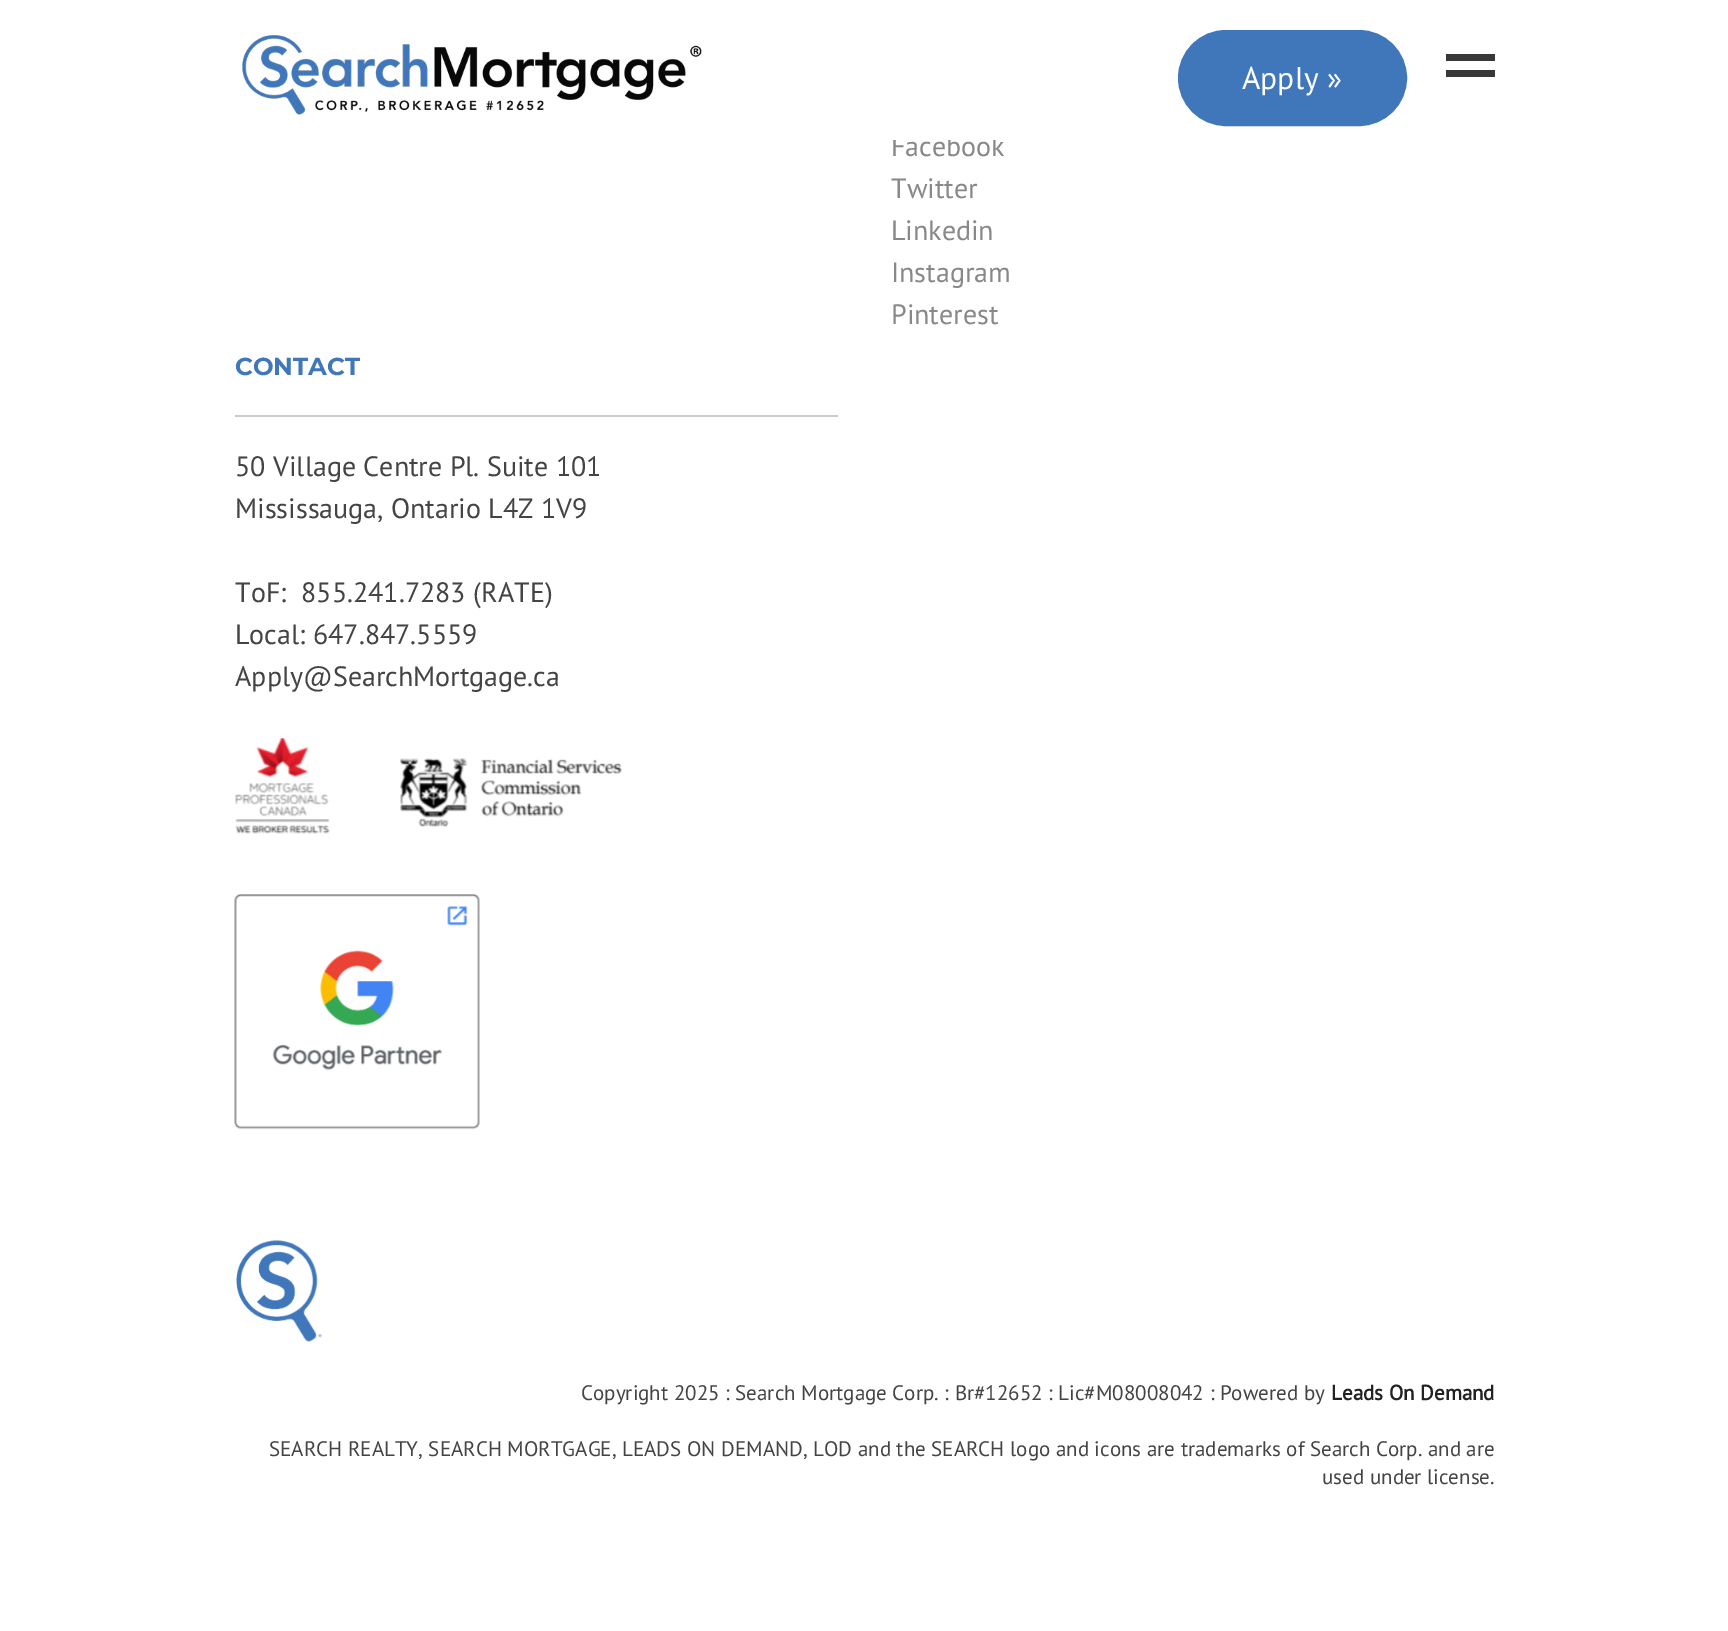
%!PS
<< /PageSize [1728 1631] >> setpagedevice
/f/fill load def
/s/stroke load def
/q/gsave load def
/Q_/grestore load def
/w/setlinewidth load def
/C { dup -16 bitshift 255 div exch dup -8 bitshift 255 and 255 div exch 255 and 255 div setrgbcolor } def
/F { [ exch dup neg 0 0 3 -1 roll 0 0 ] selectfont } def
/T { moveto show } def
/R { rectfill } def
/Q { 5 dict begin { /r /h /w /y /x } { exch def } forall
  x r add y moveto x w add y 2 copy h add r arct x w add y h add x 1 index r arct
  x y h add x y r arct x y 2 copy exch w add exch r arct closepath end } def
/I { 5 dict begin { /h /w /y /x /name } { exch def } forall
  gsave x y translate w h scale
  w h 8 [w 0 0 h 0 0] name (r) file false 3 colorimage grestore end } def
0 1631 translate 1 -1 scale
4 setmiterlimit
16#FFFFFF C
0 0 1728 1631 R
/PTSans-Regular 28 F
16#888888 C
(Facebook) 891 156 T
16#FFFFFF C
893 136 103 4 R
(1.rgb) 242 35 460 80 I
16#4077BB C
1179 31 227 94 47 Q q f Q_
2 w
s
/PTSans-Regular 31.5 F
16#FFFFFF C
(Apply ») 1242 89 T
16#383838 C
1446 54 49 7 R
1446 70 49 7 R
/PTSans-Regular 28 F
16#888888 C
(Twitter) 891 198 T
(Linkedin) 891 240 T
(Instagram) 891 282 T
(Pinterest) 891 324 T
/Montserrat-Bold 24.5 F
16#4077BB C
(CONTACT) 235 375 T
16#CCCCCC C
235 415 603 2 R
/PTSans-Regular 28 F
16#444444 C
(50 Village Centre Pl. Suite 101) 235 476 T
(Mississauga, Ontario L4Z 1V9) 235 518 T
(ToF:  855.241.7283 \(RATE\)) 235 602 T
(Local: 647.847.5559) 235 644 T
(Apply@SearchMortgage.ca) 235 686 T
(2.rgb) 235 738 387 96 I
(3.rgb) 234 894 246 236 I
(4.rgb) 236 1240 86 102 I
/PTSans-Regular 21 F
(Copyright 2025 : Search Mortgage Corp. : Br#12652 : Lic#M08008042 : Powered by) 581 1400 T
/PTSans-Bold 21 F
16#222222 C
(Leads On Demand) 1331 1400 T
/PTSans-Regular 21 F
16#444444 C
(SEARCH REALTY, SEARCH MORTGAGE, LEADS ON DEMAND, LOD and the SEARCH logo and icons are trademarks of Search Corp. and are) 269 1456 T
(used under license.) 1322 1484 T
showpage
